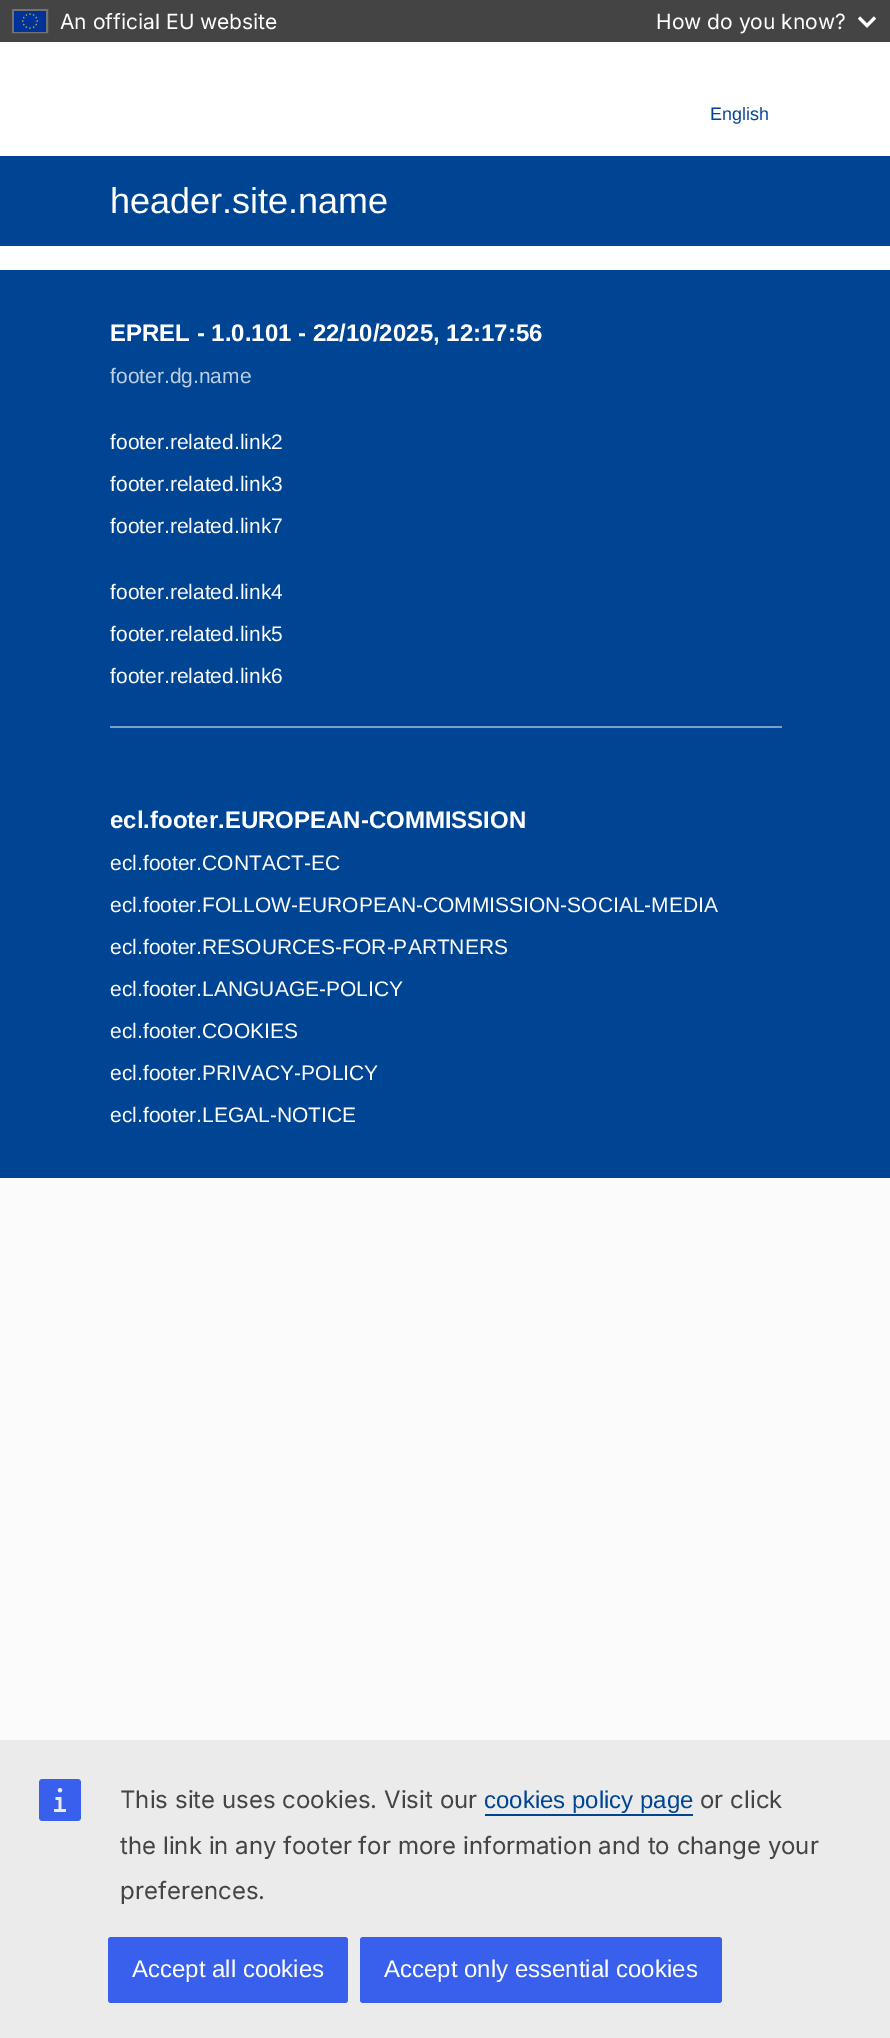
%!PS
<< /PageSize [890 2038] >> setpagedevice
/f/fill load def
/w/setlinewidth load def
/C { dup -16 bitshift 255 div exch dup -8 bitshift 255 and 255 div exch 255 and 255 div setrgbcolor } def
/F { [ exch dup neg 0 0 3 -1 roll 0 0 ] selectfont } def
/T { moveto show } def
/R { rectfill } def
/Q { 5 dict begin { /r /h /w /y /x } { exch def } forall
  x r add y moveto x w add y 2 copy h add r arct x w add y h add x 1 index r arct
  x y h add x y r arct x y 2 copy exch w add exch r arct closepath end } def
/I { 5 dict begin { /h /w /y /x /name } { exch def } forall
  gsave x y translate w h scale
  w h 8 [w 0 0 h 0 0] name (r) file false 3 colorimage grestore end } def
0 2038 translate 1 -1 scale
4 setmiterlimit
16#FBFBFB C
0 0 890 2038 R
16#444444 C
0 0 890 42 R
16#737373 C
2 w
13 10 34 22 rectstroke
(1.rgb) 14 11 32 21 I
/Inter-Regular 21 F
16#FFFFFF C
(An official EU website) 60 29 T
(How do you know?) 656 29 T
(2.rgb) 858 16 18 12 I
0 42 890 114 R
/LiberationSans-Regular 18 F
16#004494 C
(English) 710 120 T
0 156 890 90 R
/LiberationSans-Regular 36 F
16#FFFFFF C
(header.site.name) 110 213 T
0 246 890 24 R
16#004494 C
0 270 890 908 R
16#7FA1C9 C
110 726 672 2 R
/LiberationSans-Bold 24 F
16#FFFFFF C
(EPREL - 1.0.101 - 22/10/2025, 12:17:56) 110 341 T
/LiberationSans-Regular 21 F
16#BFD0E4 C
(footer.dg.name) 110 383 T
16#FFFFFF C
(footer.related.link2) 110 449 T
(footer.related.link3) 110 491 T
(footer.related.link7) 110 533 T
(footer.related.link4) 110 599 T
(footer.related.link5) 110 641 T
(footer.related.link6) 110 683 T
/LiberationSans-Bold 24 F
(ecl.footer.EUROPEAN-COMMISSION) 110 828 T
/LiberationSans-Regular 21 F
(ecl.footer.CONTACT-EC) 110 870 T
(ecl.footer.FOLLOW-EUROPEAN-COMMISSION-SOCIAL-MEDIA) 110 912 T
(ecl.footer.RESOURCES-FOR-PARTNERS) 110 954 T
(ecl.footer.LANGUAGE-POLICY) 110 996 T
(ecl.footer.COOKIES) 110 1038 T
(ecl.footer.PRIVACY-POLICY) 110 1080 T
(ecl.footer.LEGAL-NOTICE) 110 1122 T
16#EBEBEB C
0 1740 890 298 R
(3.rgb) 39 1779 42 42 I
/Inter-Regular 24 F
16#444444 C
(This site uses cookies. Visit our) 120 1808 T
/LiberationSans-Regular 24 F
16#004494 C
(cookies policy page) 484 1808 T
485 1814 208 2 R
/Inter-Regular 24 F
16#444444 C
(or click) 700 1808 T
(the link in any footer for more information and to change your) 120 1854 T
(preferences.) 120 1899 T
16#3860ED C
108 1937 240 66 3 Q f
/LiberationSans-Regular 24 F
16#FFFFFF C
(Accept all cookies) 132 1977 T
16#3860ED C
360 1937 362 66 3 Q f
16#FFFFFF C
(Accept only essential cookies) 384 1977 T
showpage
